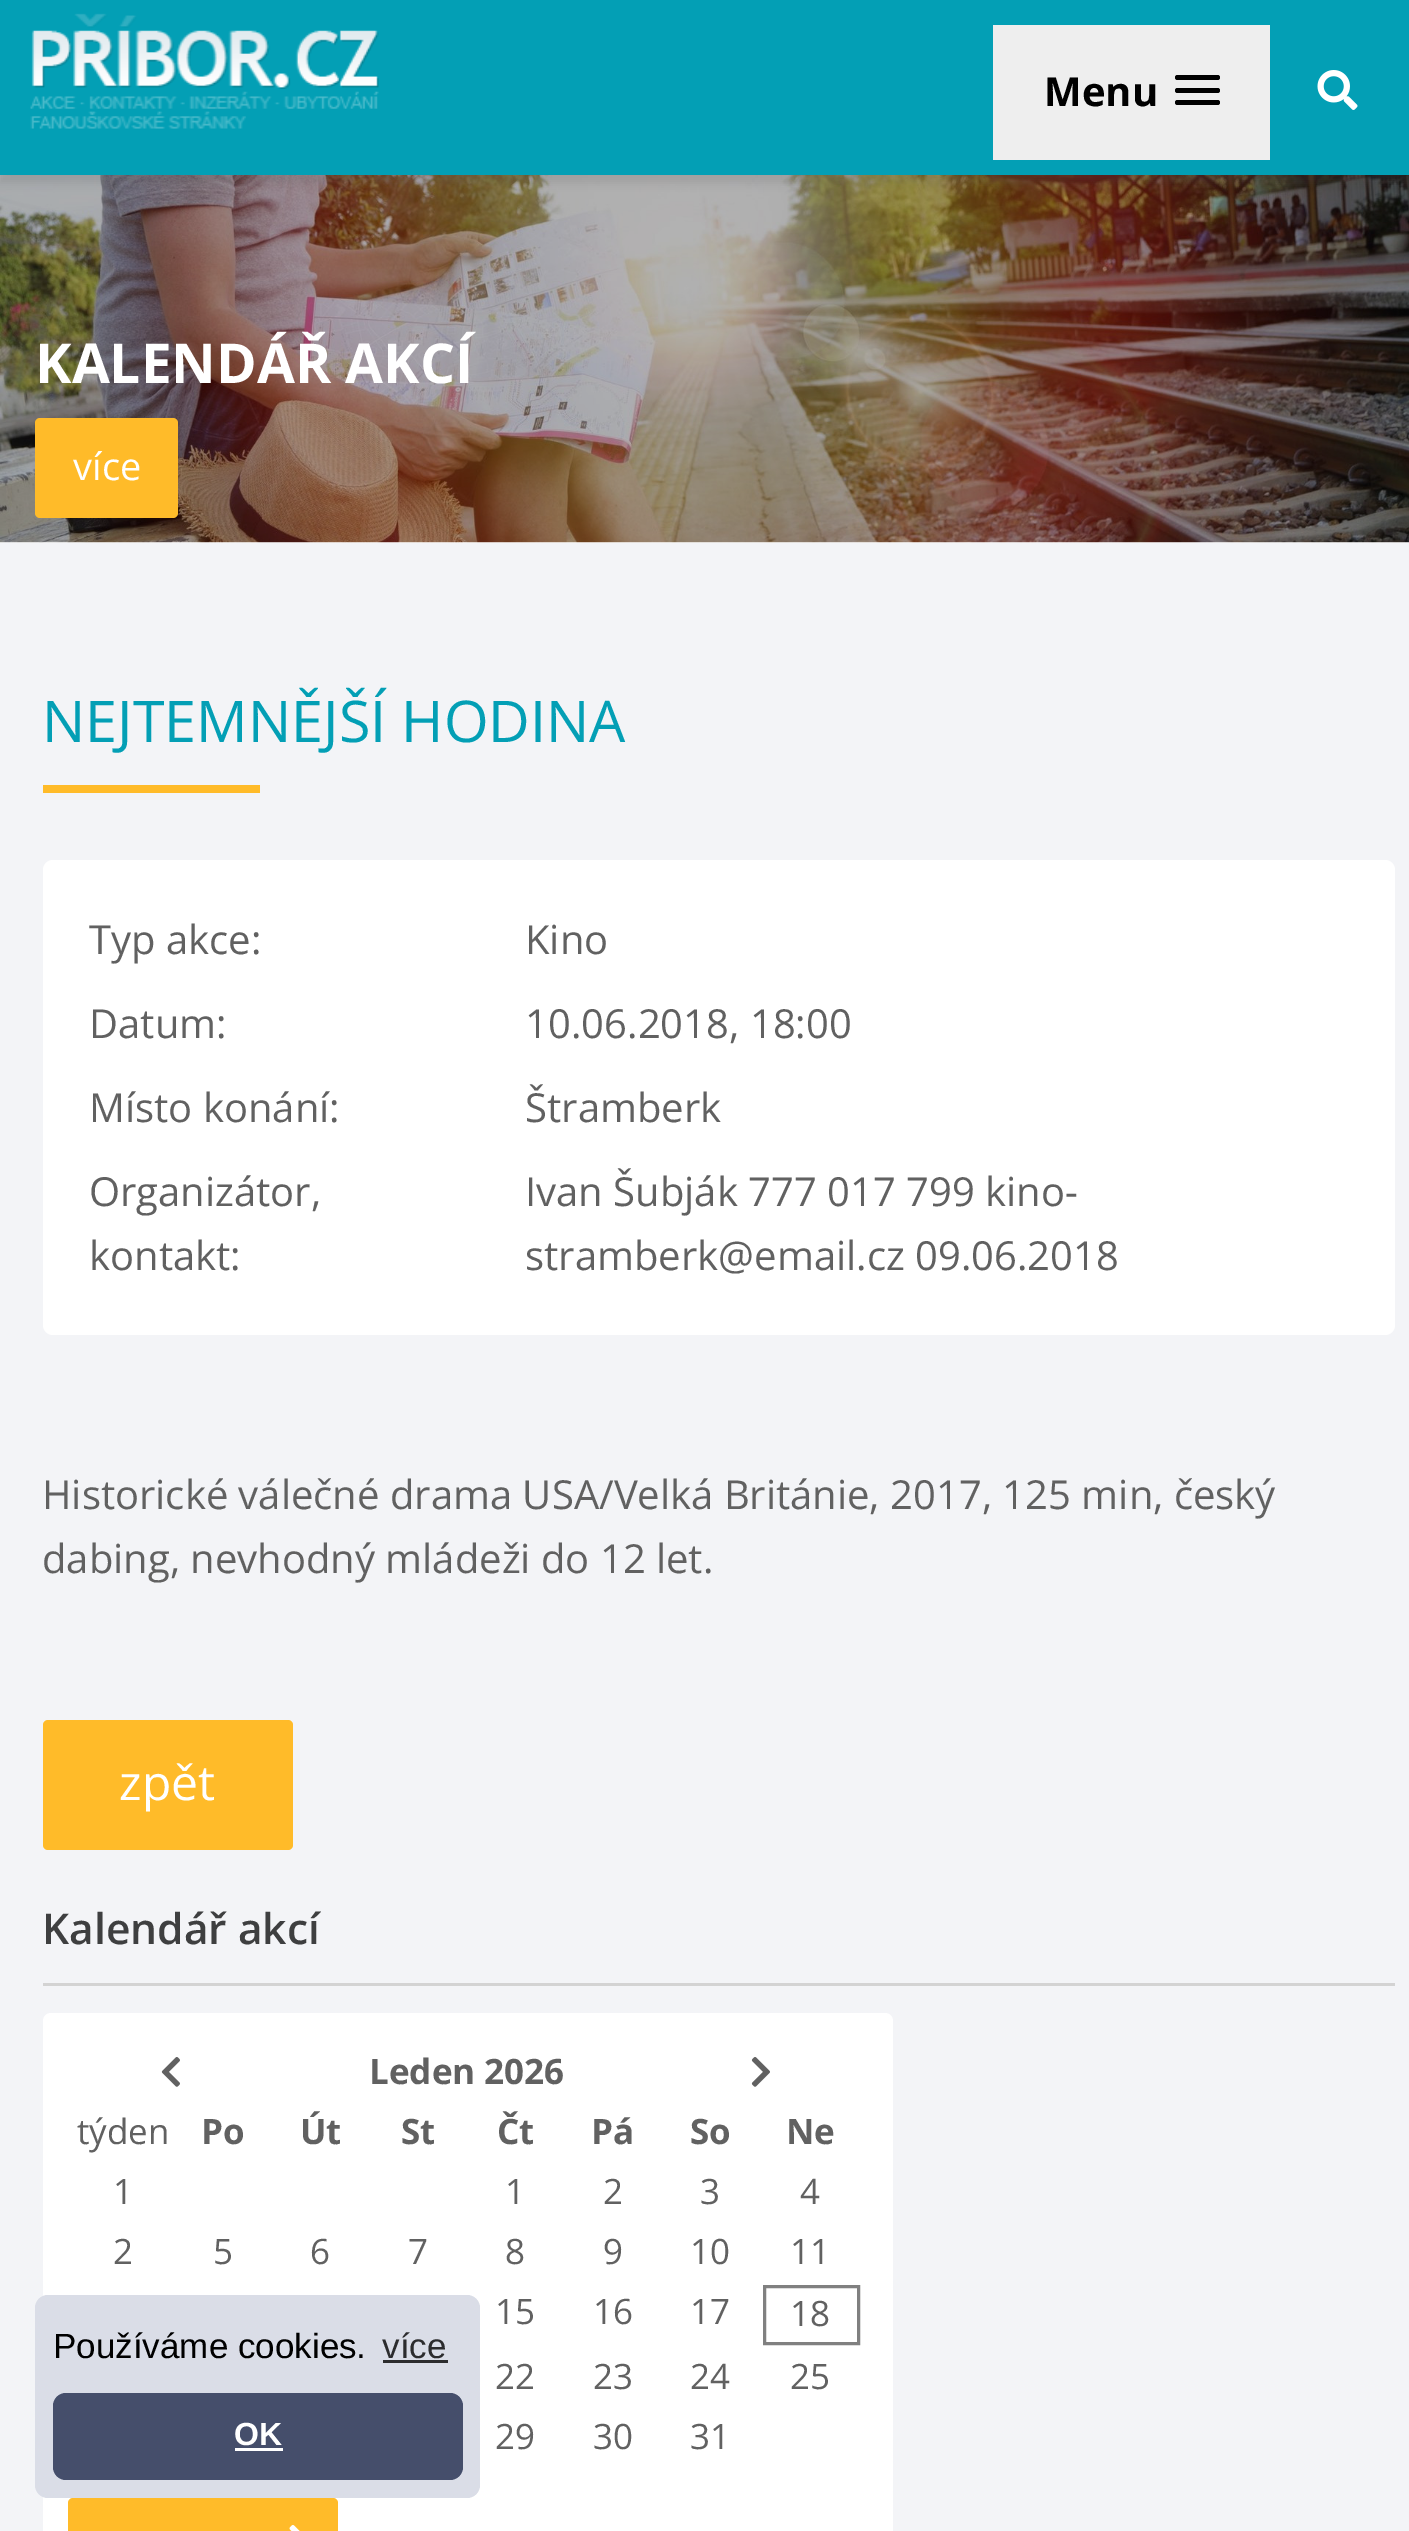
%!PS
<< /PageSize [1409 2531] /PageUsesTransparency true >> setpagedevice
/f/fill load def
/w/setlinewidth load def
/C { dup -16 bitshift 255 div exch dup -8 bitshift 255 and 255 div exch 255 and 255 div setrgbcolor } def
/F { [ exch dup neg 0 0 3 -1 roll 0 0 ] selectfont } def
/T { moveto show } def
/R { rectfill } def
/A { dup .setfillconstantalpha .setstrokeconstantalpha } def
/Q { 5 dict begin { /r /h /w /y /x } { exch def } forall
  x r add y moveto x w add y 2 copy h add r arct x w add y h add x 1 index r arct
  x y h add x y r arct x y 2 copy exch w add exch r arct closepath end } def
/S { 12 dict begin { /a /b /q /h /w /y /x } { exch def } forall gsave /was 0 def
  9 -2 -9 { dup b mul 4 div /e exch def 1 sub .425 mul 2.718 exch exp 1 add a .99 .min exch div /now exch def
    1 1 now sub 1 was sub div sub A /was now def
    w h .min e 2 mul add 0 gt { x e sub y e sub w e 2 mul add h e 2 mul add
      q e add b .6 mul add w h .min 2 div e add .min 0 .max Q fill } if } for grestore end } def
/I { 5 dict begin { /h /w /y /x /name } { exch def } forall
  gsave x y translate w h scale
  w h 8 [w 0 0 h 0 0] name (r) file false 3 colorimage grestore end } def
0 .pushpdf14devicefilter
0 2531 translate 1 -1 scale
4 setmiterlimit
16#FFFFFF C
0 0 1409 2531 R
(3.rgb) 0 175 1409 368 I
16#646464 C
0 8 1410 175 0 4 .2 S
16#039FB5 C
0 0 1409 175 R
(1.rgb) 30 13 349 116 I
16#EEEEEE C
993 25 277 135 R
/OpenSans-Bold 40 F
16#000000 C
(Menu) 1044 106 T
1175 75 45 5 2.5 Q f
1175 88 45 5 2.5 Q f
1175 100 45 5 2.5 Q f
(2.rgb) 1317 70 41 40 I
/OpenSans-Bold 55 F
16#FFFFFF C
(KALENDÁŘ AKCÍ) 35 383 T
16#FFBB29 C
35 418 143 100 5 Q f
/OpenSans-Regular 38 F
16#FFFFFF C
(více) 73 480 T
16#F3F4F7 C
0 543 1409 1988 R
/OpenSans-Regular 57.5 F
16#039FB5 C
(NEJTEMNĚJŠÍ HODINA) 42 742 T
16#FFBB29 C
43 785 217 8 R
16#FFFFFF C
43 860 1352 475 10 Q f
/OpenSans-Regular 40 F
16#616161 C
(Typ akce:) 89 954 T
(Kino) 525 954 T
(Datum:) 89 1038 T
(10.06.2018, 18:00) 525 1038 T
(Místo konání:) 89 1122 T
(Štramberk) 525 1122 T
(Organizátor,) 89 1206 T
(kontakt:) 89 1270 T
(Ivan Šubják 777 017 799 kino-) 525 1206 T
(stramberk@email.cz 09.06.2018) 525 1270 T
(Historické válečné drama USA/Velká Británie, 2017, 125 min, český) 42 1509 T
(dabing, nevhodný mládeži do 12 let.) 42 1573 T
16#FFBB29 C
43 1720 250 130 5 Q f
/OpenSans-Regular 48 F
16#FFFFFF C
(zpět) 119 1800 T
/OpenSans-SemiBold 42.5 F
16#3E3F40 C
(Kalendář akcí) 42 1944 T
16#D3D3D3 C
43 1983 1352 3 R
16#FFFFFF C
43 2013 850 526 8 Q f
(4.rgb) 161 2057 19 30 I
/OpenSans-Bold 35 F
16#616161 C
(Leden 2026) 369 2084 T
(5.rgb) 751 2057 19 30 I
/OpenSans-Regular 35 F
(týden) 77 2144 T
/OpenSans-Bold 35 F
(Po) 201 2144 T
(Út) 300 2144 T
(St) 401 2144 T
(Čt) 497 2144 T
(Pá) 591 2144 T
(So) 690 2144 T
(Ne) 786 2144 T
/OpenSans-Regular 35 F
(1) 113 2204 T
(1) 505 2204 T
(2) 603 2204 T
(3) 700 2204 T
(4) 800 2204 T
(2) 113 2264 T
(5) 213 2264 T
(6) 310 2264 T
(7) 408 2264 T
(8) 505 2264 T
(9) 603 2264 T
(10) 690 2264 T
(11) 790 2264 T
(15) 495 2324 T
(16) 593 2324 T
(17) 690 2324 T
16#808080 C
3 w
764.5 2286.5 94 57 rectstroke
16#616161 C
(18) 790 2326 T
(22) 495 2389 T
(23) 593 2389 T
(24) 690 2389 T
(25) 790 2389 T
(29) 495 2449 T
(30) 593 2449 T
(31) 690 2449 T
16#FFBB29 C
68 2498 270 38 5 Q f
(6.rgb) 289 2525 11 6 I
16#DADDE7 C
35 2295 445 203 13 Q f
/LiberationSans-Regular 35 F
16#000000 C
(Používáme cookies.) 53 2358 T
16#2C2C2E C
(více) 382 2358 T
383 2360 65 3 R
16#454E6B C
53 2393 410 87 13 Q f
/LiberationSans-Bold 32 F
16#FFFFFF C
(OK) 234 2445 T
235 2448 48 3 R
.poppdf14devicefilter showpage
